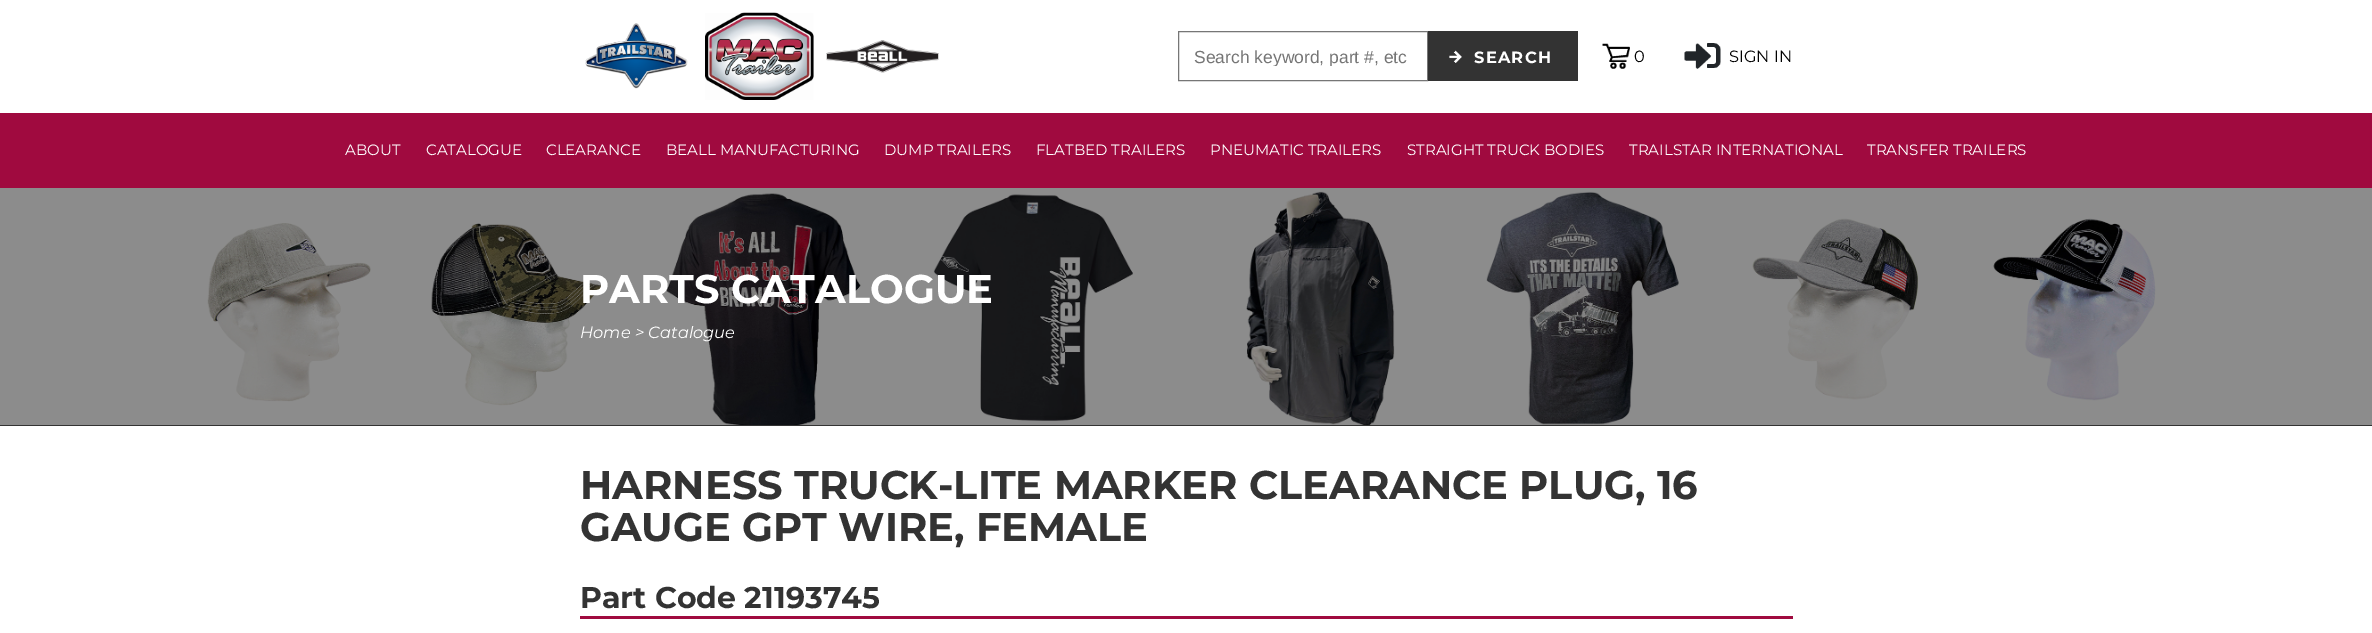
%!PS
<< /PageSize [2372 633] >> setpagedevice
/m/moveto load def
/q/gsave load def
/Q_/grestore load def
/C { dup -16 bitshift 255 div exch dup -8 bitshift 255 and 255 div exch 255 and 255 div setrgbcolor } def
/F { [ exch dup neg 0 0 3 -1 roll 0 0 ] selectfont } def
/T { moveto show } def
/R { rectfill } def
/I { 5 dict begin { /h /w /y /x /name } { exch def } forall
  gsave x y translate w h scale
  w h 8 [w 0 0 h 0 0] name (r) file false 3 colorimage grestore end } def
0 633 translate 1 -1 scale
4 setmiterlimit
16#FFFFFF C
0 0 2372 633 R
16#8C8C8C C
0 188 2372 237 R
(1.rgb) 585 23 103 66 I
(2.rgb) 705 12 109 88 I
(3.rgb) 826 40 113 33 I
16#767676 C
1178.5 31.5 249 49 rectstroke
q
1194 46 217 20 rectclip
/LiberationSans-Regular 17.5 F
16#757575 C
(Search keyword, part #, etc) 1194 63 T
Q_
16#333333 C
1428 31 150 50 R
(4.rgb) 1449 50 13 13 I
/Montserrat-Bold 16.25 F
16#FFFFFF C
1474 63 m 1.25 0 (SEARCH) ashow
(5.rgb) 1602 43 28 26 I
/Montserrat-Regular 16.25 F
16#000000 C
(0) 1634 62 T
(6.rgb) 1684 43 37 26 I
(SIGN IN) 1729 62 T
16#A00A3F C
0 113 2372 75 R
/Montserrat-Regular 15 F
16#FFFFFF C
(ABOUT) 345 155 T
(CATALOGUE) 426 155 T
(CLEARANCE) 546 155 T
(BEALL MANUFACTURING) 666 155 T
(DUMP TRAILERS) 884 155 T
(FLATBED TRAILERS) 1036 155 T
(PNEUMATIC TRAILERS) 1210 155 T
(STRAIGHT TRUCK BODIES) 1407 155 T
(TRAILSTAR INTERNATIONAL) 1629 155 T
(TRANSFER TRAILERS) 1867 155 T
(7.rgb) 207 191 1949 234 I
/Montserrat-Bold 40 F
(PARTS CATALOGUE) 580 303 T
/Montserrat-Italic 16.25 F
(Home > Catalogue) 580 338 T
16#333333 C
0 425 2372 1 R
/Montserrat-Bold 40 F
(HARNESS TRUCK-LITE MARKER CLEARANCE PLUG, 16) 580 499 T
(GAUGE GPT WIRE, FEMALE) 580 541 T
16#A00A3F C
580 616 1213 3 R
/Montserrat-Bold 30 F
16#333333 C
(Part Code 21193745) 580 608 T
showpage
